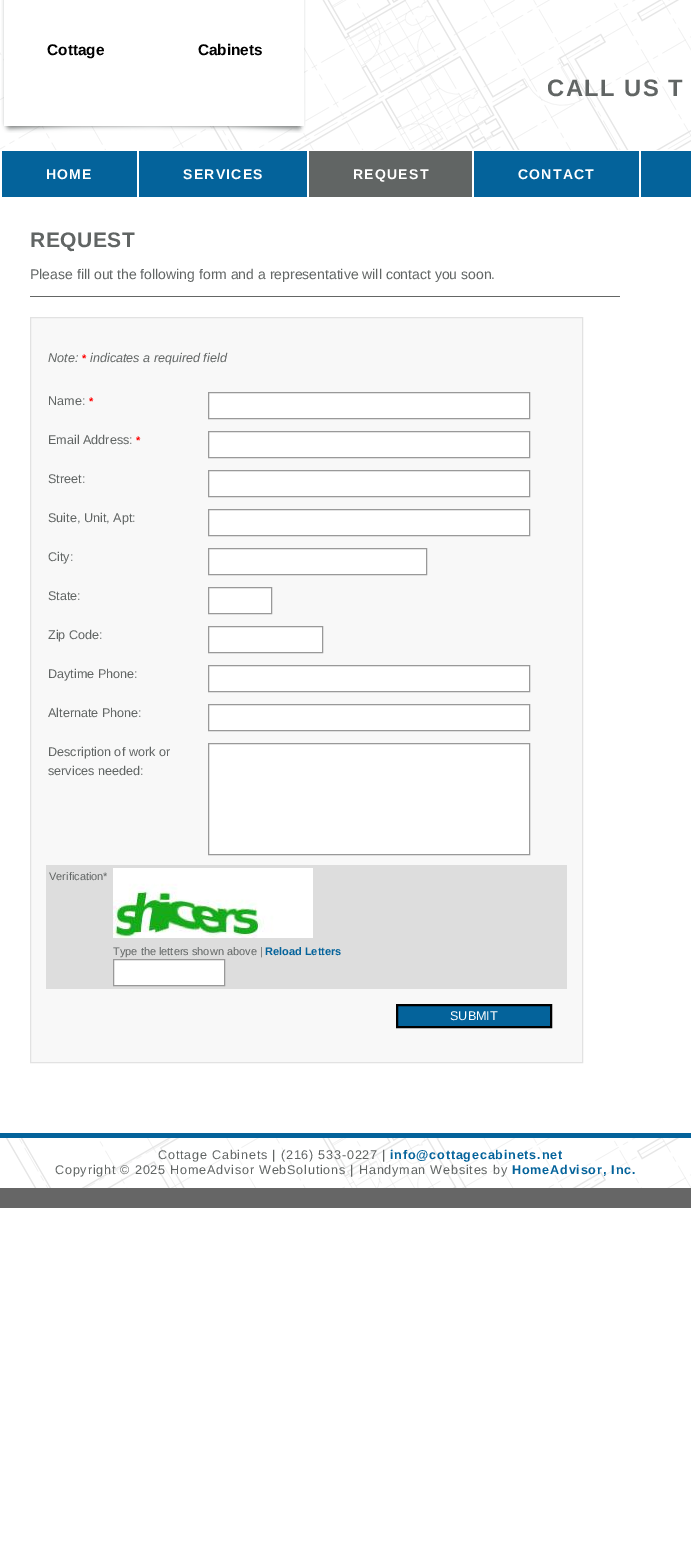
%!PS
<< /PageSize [691 1553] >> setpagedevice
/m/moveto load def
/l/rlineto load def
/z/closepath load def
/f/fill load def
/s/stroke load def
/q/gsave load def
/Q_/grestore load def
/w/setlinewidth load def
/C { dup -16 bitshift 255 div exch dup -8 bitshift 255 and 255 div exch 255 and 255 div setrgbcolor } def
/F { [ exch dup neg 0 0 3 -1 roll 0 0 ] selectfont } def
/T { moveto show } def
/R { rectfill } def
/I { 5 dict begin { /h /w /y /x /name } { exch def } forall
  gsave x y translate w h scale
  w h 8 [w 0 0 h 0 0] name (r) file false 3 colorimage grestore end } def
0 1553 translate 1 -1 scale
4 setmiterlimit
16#FFFFFF C
0 0 691 1553 R
(1.rgb) 0 0 691 150 I
(2.rgb) 1 0 305 133 I
/LiberationSans-Bold 15.4 F
16#000000 C
47 55 m 89 0 32 (Cottage Cabinets) widthshow
/LiberationSans-Bold 23.75 F
16#616564 C
547 96 m 1.5 0 (CALL US T) ashow
16#04639B C
2 151 689 46 R
16#FFFFFF C
137 151 2 46 R
/LiberationSans-Bold 14 F
46 179 m 1.25 0 (HOME) ashow
307 151 2 46 R
183 179 m 1.25 0 (SERVICES) ashow
16#616564 C
309 151 163 46 R
16#FFFFFF C
472 151 2 46 R
353 179 m 1.25 0 (REQUEST) ashow
639 151 2 46 R
518 179 m 1.25 0 (CONTACT) ashow
/LiberationSans-Bold 21 F
16#616564 C
30 247 m .5 0 (REQUEST) ashow
/LiberationSans-Regular 14 F
(Please fill out the following form and a representative will contact you soon.) 30 279 T
16#646665 C
30 296 590 1 R
16#F8F8F8 C
30.5 317.5 m 552 0 l 0 745 l -552 0 l z q f Q_
16#E2E2E2 C
s
/LiberationSans-Italic 12.6 F
16#616564 C
(Note:) 48 362 T
/LiberationSans-Bold 11 F
16#FF0000 C
(*) 82 362 T
/LiberationSans-Italic 12.6 F
16#616564 C
(indicates a required field) 90 362 T
/LiberationSans-Regular 12.6 F
(Name:) 48 405 T
/LiberationSans-Bold 11 F
16#FF0000 C
(*) 89 405 T
16#FFFFFF C
208.5 392.5 m 321 0 l 0 26 l -321 0 l z q f Q_
16#999999 C
s
/LiberationSans-Regular 12.6 F
16#616564 C
(Email Address:) 48 444 T
/LiberationSans-Bold 11 F
16#FF0000 C
(*) 136 444 T
16#FFFFFF C
208.5 431.5 m 321 0 l 0 26 l -321 0 l z q f Q_
16#999999 C
s
/LiberationSans-Regular 12.6 F
16#616564 C
(Street:) 48 483 T
16#FFFFFF C
208.5 470.5 m 321 0 l 0 26 l -321 0 l z q f Q_
16#999999 C
s
16#616564 C
(Suite, Unit, Apt:) 48 522 T
16#FFFFFF C
208.5 509.5 m 321 0 l 0 26 l -321 0 l z q f Q_
16#999999 C
s
16#616564 C
(City:) 48 561 T
16#FFFFFF C
208.5 548.5 m 218 0 l 0 26 l -218 0 l z q f Q_
16#999999 C
s
16#616564 C
(State:) 48 600 T
16#FFFFFF C
208.5 587.5 m 63 0 l 0 26 l -63 0 l z q f Q_
16#999999 C
s
16#616564 C
(Zip Code:) 48 639 T
16#FFFFFF C
208.5 626.5 m 114 0 l 0 26 l -114 0 l z q f Q_
16#999999 C
s
16#616564 C
(Daytime Phone:) 48 678 T
16#FFFFFF C
208.5 665.5 m 321 0 l 0 26 l -321 0 l z q f Q_
16#999999 C
s
16#616564 C
(Alternate Phone:) 48 717 T
16#FFFFFF C
208.5 704.5 m 321 0 l 0 26 l -321 0 l z q f Q_
16#999999 C
s
16#616564 C
(Description of work or) 48 756 T
(services needed:) 48 775 T
16#FFFFFF C
208.5 743.5 m 321 0 l 0 111 l -321 0 l z q f Q_
16#999999 C
s
16#DDDDDD C
46 865 521 124 R
/LiberationSans-Regular 11 F
16#616564 C
(Verification*) 49 880 T
(3.rgb) 113 868 200 70 I
(Type the letters shown above |) 113 955 T
/LiberationSans-Bold 11 F
16#04639B C
(Reload Letters) 265 955 T
16#FFFFFF C
113.5 959.5 m 111 0 l 0 26 l -111 0 l z q f Q_
16#999999 C
s
16#04639B C
397 1005 m 154 0 l 0 22 l -154 0 l z q f Q_
16#000000 C
2 w
s
/LiberationSans-Regular 12.6 F
16#FFFFFF C
(SUBMIT) 450 1020 T
(4.rgb) 0 1138 691 50 I
16#04639B C
0 1133 691 5 R
16#666666 C
0 1188 691 20 R
16#616564 C
158 1159 m .8 0 (Cottage Cabinets | \(216\) 533-0227 |) ashow
/LiberationSans-Bold 12.6 F
16#04639B C
390 1159 m .8 0 (info@cottagecabinets.net) ashow
/LiberationSans-Regular 12.6 F
16#616564 C
55 1174 m .8 0 (Copyright © 2025 HomeAdvisor WebSolutions | Handyman Websites by) ashow
/LiberationSans-Bold 12.6 F
16#04639B C
512 1174 m .8 0 (HomeAdvisor, Inc.) ashow
showpage
